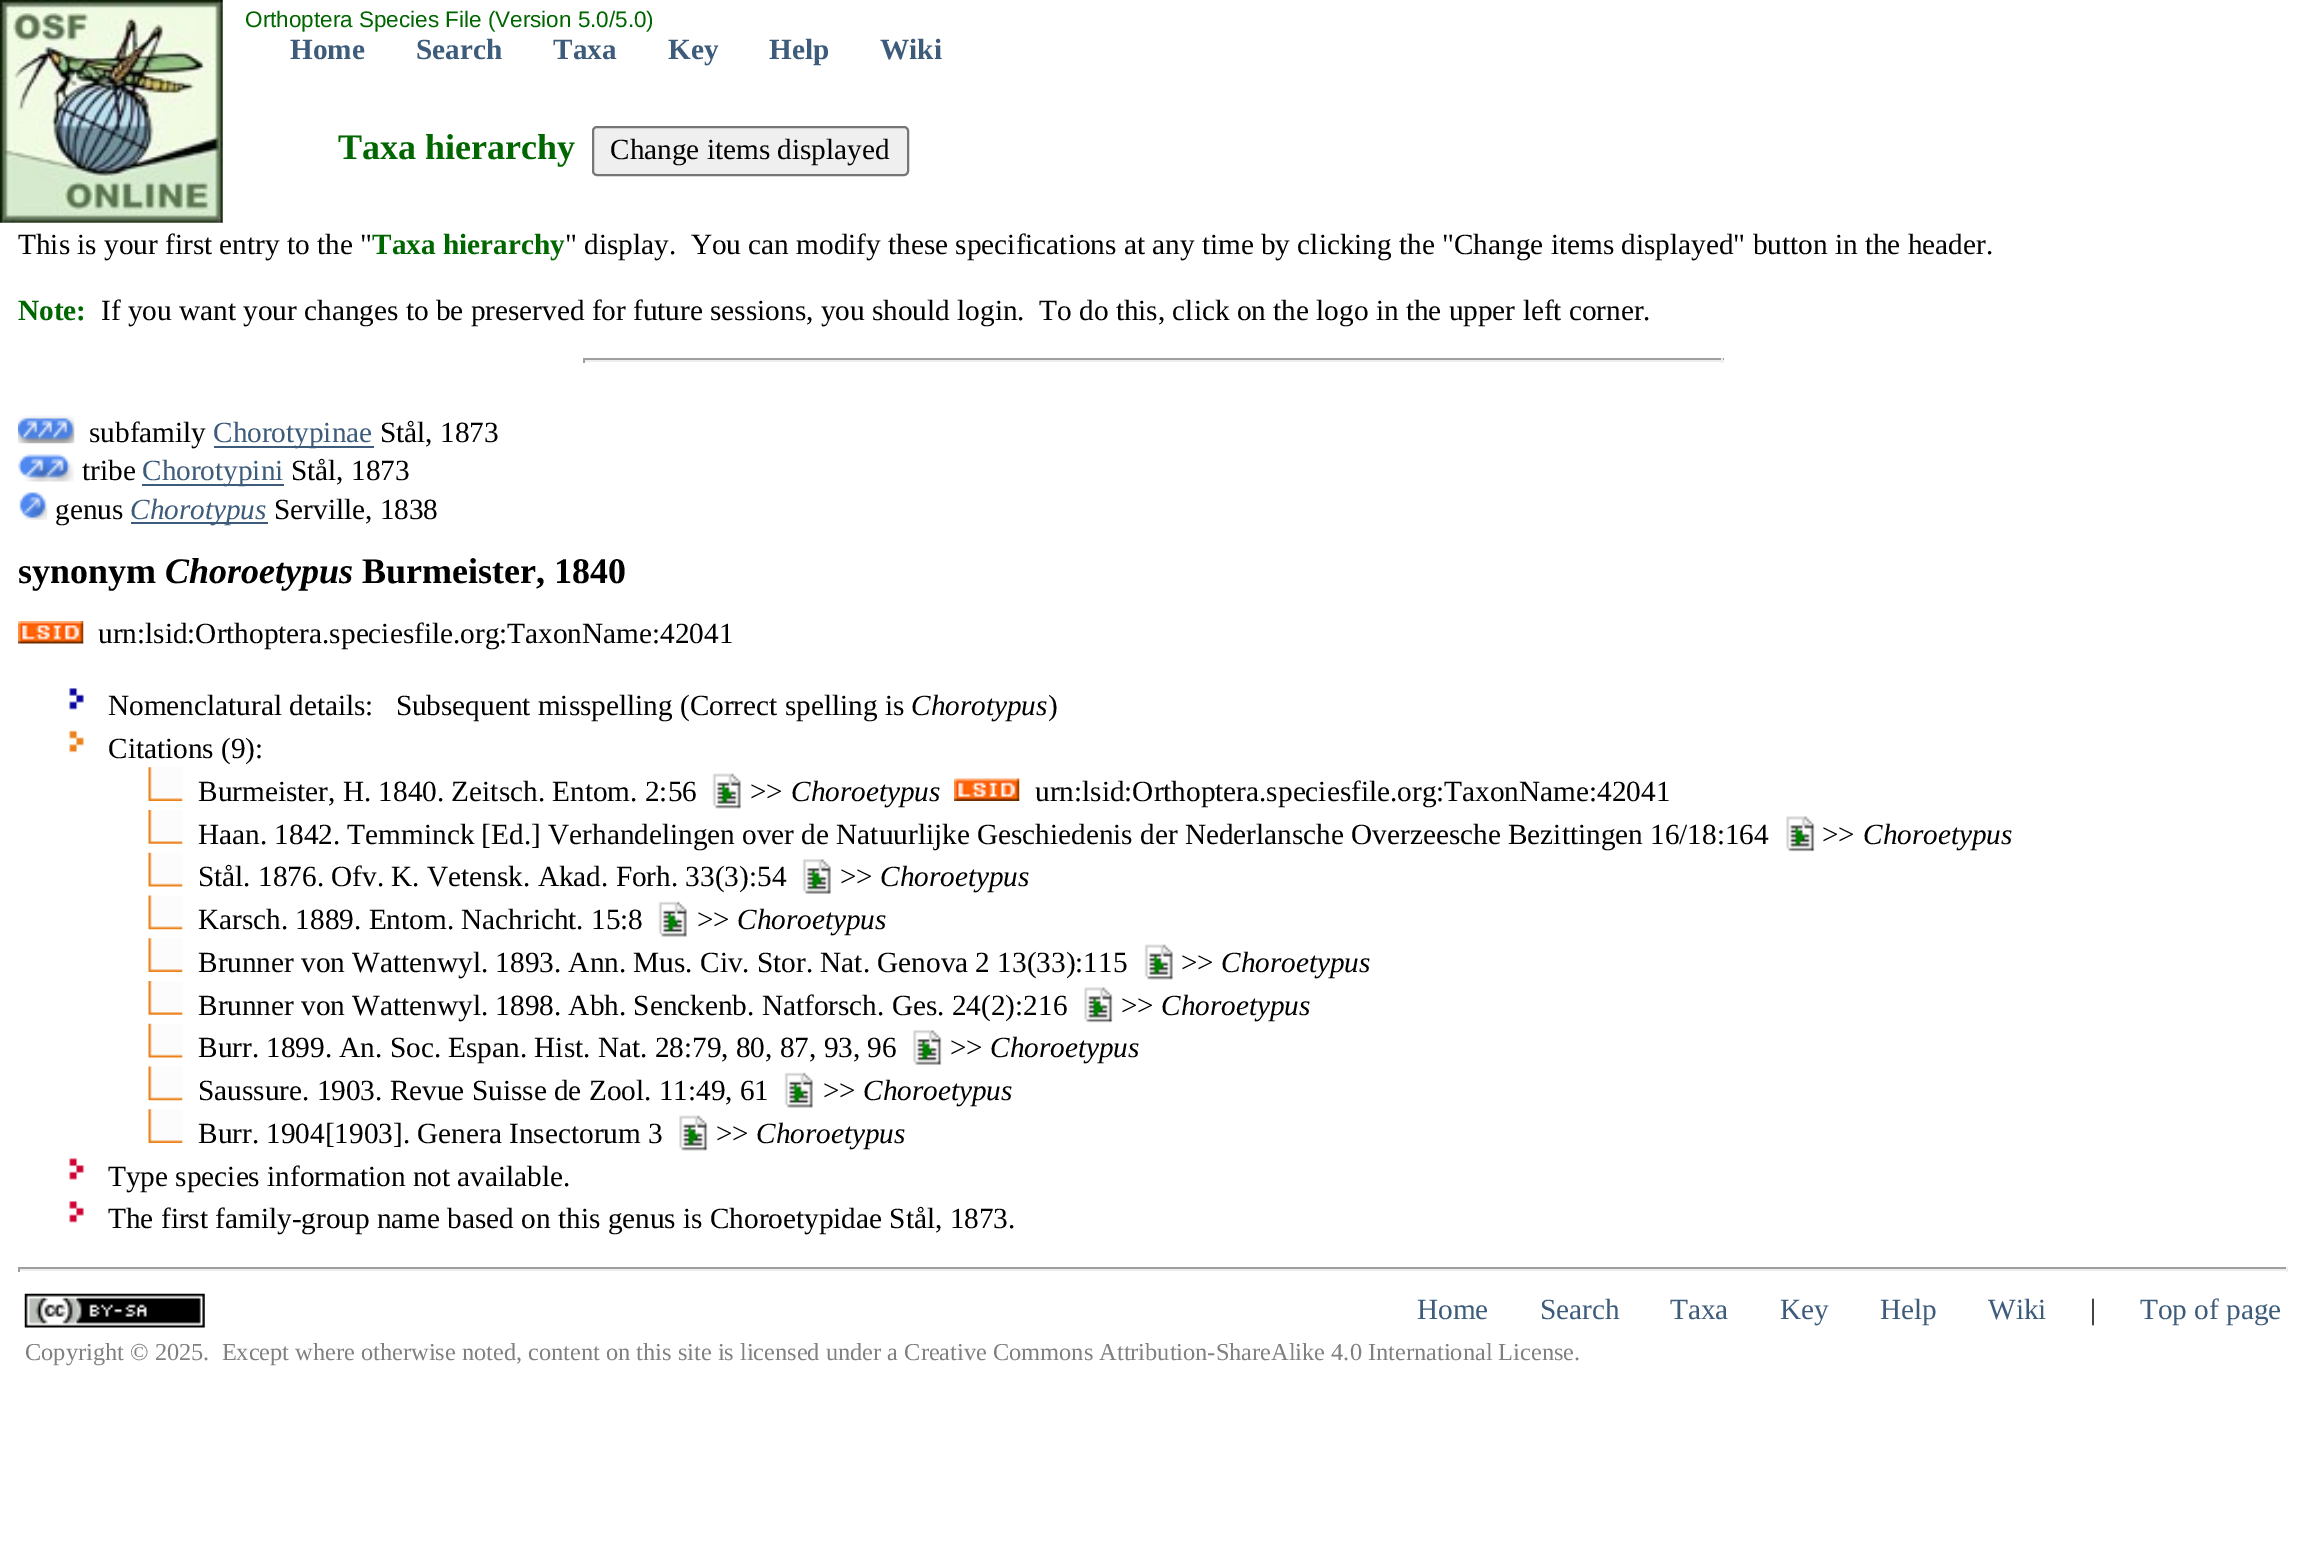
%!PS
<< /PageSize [2306 1558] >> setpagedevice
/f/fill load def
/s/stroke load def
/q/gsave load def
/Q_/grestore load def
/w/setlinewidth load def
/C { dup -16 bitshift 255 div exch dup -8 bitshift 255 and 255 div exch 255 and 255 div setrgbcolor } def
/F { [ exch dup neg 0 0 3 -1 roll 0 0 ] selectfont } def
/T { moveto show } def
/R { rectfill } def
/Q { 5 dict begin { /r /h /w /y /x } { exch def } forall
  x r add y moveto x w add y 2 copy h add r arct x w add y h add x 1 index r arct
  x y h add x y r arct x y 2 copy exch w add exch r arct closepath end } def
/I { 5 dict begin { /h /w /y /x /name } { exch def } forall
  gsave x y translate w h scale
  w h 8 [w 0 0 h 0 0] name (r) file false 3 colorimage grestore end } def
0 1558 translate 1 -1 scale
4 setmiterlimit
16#FFFFFF C
0 0 2306 1558 R
(1.rgb) 0 0 223 223 I
/LiberationSans-Regular 22.5 F
16#006600 C
(Orthoptera Species File \(Version 5.0/5.0\)) 245 27 T
/LiberationSerif-Bold 29.25 F
16#3D5B7B C
(Home) 290 59 T
(Search) 416 59 T
(Taxa) 553 59 T
(Key) 668 59 T
(Help) 769 59 T
(Wiki) 880 59 T
/LiberationSerif-Bold 36 F
16#006600 C
(Taxa hierarchy) 338 159 T
16#EFEFEF C
593 127 315 48 4 Q q f Q_
16#767676 C
2 w
s
/LiberationSerif-Regular 29.25 F
16#000000 C
(Change items displayed) 610 159 T
(This is your first entry to the ") 18 254 T
/LiberationSerif-Bold 29.25 F
16#006600 C
(Taxa hierarchy) 372 254 T
/LiberationSerif-Regular 29.25 F
16#000000 C
(" display.  You can modify these specifications at any time by clicking the "Change items displayed" button in the header.) 565 254 T
/LiberationSerif-Bold 29.25 F
16#006600 C
(Note:) 18 320 T
/LiberationSerif-Regular 29.25 F
16#000000 C
(If you want your changes to be preserved for future sessions, you should login.  To do this, click on the logo in the upper left corner.) 101 320 T
16#9F9F9F C
583 358 1141 2 R
16#EEEEEE C
1721 358 2 5 R
583 360 1141 2 R
16#9F9F9F C
583 358 2 5 R
(2.rgb) 18 415 57 29 I
16#000000 C
(subfamily) 89 442 T
16#3D5B7B C
214 446 160 2 R
(Chorotypinae) 213 442 T
16#000000 C
(Stål, 1873) 380 442 T
(3.rgb) 18 454 56 28 I
(tribe) 82 480 T
16#3D5B7B C
142 484 142 2 R
(Chorotypini) 142 480 T
16#000000 C
(Stål, 1873) 291 480 T
(4.rgb) 19 492 29 28 I
(genus) 55 519 T
16#3D5B7B C
131 522 137 2 R
/LiberationSerif-Italic 29.25 F
(Chorotypus) 130 519 T
/LiberationSerif-Regular 29.25 F
16#000000 C
(Serville, 1838) 274 519 T
/LiberationSerif-Bold 36 F
(synonym) 18 583 T
/LiberationSerif-BoldItalic 36 F
(Choroetypus) 165 583 T
/LiberationSerif-Bold 36 F
(Burmeister, 1840) 362 583 T
(5.rgb) 18 621 66 23 I
/LiberationSerif-Regular 29.25 F
(urn:lsid:Orthoptera.speciesfile.org:TaxonName:42041) 98 643 T
(6.rgb) 69 688 15 22 I
(Nomenclatural details:   Subsequent misspelling \(Correct spelling is) 108 715 T
/LiberationSerif-Italic 29.25 F
(Chorotypus) 911 715 T
/LiberationSerif-Regular 29.25 F
(\)) 1048 715 T
(7.rgb) 69 730 15 23 I
(Citations \(9\):) 108 758 T
(8.rgb) 148 767 35 34 I
(Burmeister, H. 1840. Zeitsch. Entom. 2:56) 198 801 T
(9.rgb) 712 773 29 36 I
(>>) 750 801 T
/LiberationSerif-Italic 29.25 F
(Choroetypus) 791 801 T
(10.rgb) 954 778 66 23 I
/LiberationSerif-Regular 29.25 F
(urn:lsid:Orthoptera.speciesfile.org:TaxonName:42041) 1035 801 T
(11.rgb) 148 810 35 34 I
(Haan. 1842. Temminck [Ed.] Verhandelingen over de Natuurlijke Geschiedenis der Nederlansche Overzeesche Bezittingen 16/18:164) 198 844 T
(12.rgb) 1786 816 29 36 I
(>>) 1822 844 T
/LiberationSerif-Italic 29.25 F
(Choroetypus) 1863 844 T
(13.rgb) 148 852 35 35 I
/LiberationSerif-Regular 29.25 F
(Stål. 1876. Ofv. K. Vetensk. Akad. Forh. 33\(3\):54) 198 886 T
(14.rgb) 802 859 29 35 I
(>>) 840 886 T
/LiberationSerif-Italic 29.25 F
(Choroetypus) 880 886 T
(15.rgb) 148 895 35 35 I
/LiberationSerif-Regular 29.25 F
(Karsch. 1889. Entom. Nachricht. 15:8) 198 929 T
(16.rgb) 658 901 29 36 I
(>>) 697 929 T
/LiberationSerif-Italic 29.25 F
(Choroetypus) 737 929 T
(8.rgb) 148 938 35 34 I
/LiberationSerif-Regular 29.25 F
(Brunner von Wattenwyl. 1893. Ann. Mus. Civ. Stor. Nat. Genova 2 13\(33\):115) 198 972 T
(17.rgb) 1144 944 29 36 I
(>>) 1181 972 T
/LiberationSerif-Italic 29.25 F
(Choroetypus) 1221 972 T
(18.rgb) 148 981 35 34 I
/LiberationSerif-Regular 29.25 F
(Brunner von Wattenwyl. 1898. Abh. Senckenb. Natforsch. Ges. 24\(2\):216) 198 1015 T
(19.rgb) 1084 987 29 36 I
(>>) 1121 1015 T
/LiberationSerif-Italic 29.25 F
(Choroetypus) 1161 1015 T
(13.rgb) 148 1023 35 35 I
/LiberationSerif-Regular 29.25 F
(Burr. 1899. An. Soc. Espan. Hist. Nat. 28:79, 80, 87, 93, 96) 198 1057 T
(20.rgb) 913 1030 29 35 I
(>>) 950 1057 T
/LiberationSerif-Italic 29.25 F
(Choroetypus) 990 1057 T
(15.rgb) 148 1066 35 35 I
/LiberationSerif-Regular 29.25 F
(Saussure. 1903. Revue Suisse de Zool. 11:49, 61) 198 1100 T
(21.rgb) 784 1072 29 36 I
(>>) 823 1100 T
/LiberationSerif-Italic 29.25 F
(Choroetypus) 863 1100 T
(8.rgb) 148 1109 35 34 I
/LiberationSerif-Regular 29.25 F
(Burr. 1904[1903]. Genera Insectorum 3) 198 1143 T
(22.rgb) 679 1115 29 36 I
(>>) 716 1143 T
/LiberationSerif-Italic 29.25 F
(Choroetypus) 756 1143 T
(23.rgb) 69 1158 15 22 I
/LiberationSerif-Regular 29.25 F
(Type species information not available.) 108 1186 T
(24.rgb) 69 1201 15 22 I
(The first family-group name based on this genus is Choroetypidae Stål, 1873.) 108 1228 T
16#9F9F9F C
18 1267 2270 2 R
16#EEEEEE C
2286 1267 2 5 R
18 1269 2270 2 R
16#9F9F9F C
18 1267 2 5 R
(25.rgb) 24 1293 181 35 I
16#3D5B7B C
(Home) 1417 1319 T
(Search) 1540 1319 T
(Taxa) 1670 1319 T
(Key) 1780 1319 T
(Help) 1880 1319 T
(Wiki) 1988 1319 T
16#000000 C
(|) 2090 1319 T
16#3D5B7B C
(Top of page) 2140 1319 T
/LiberationSerif-Regular 24.37 F
16#808080 C
(Copyright © 2025.  Except where otherwise noted, content on this site is licensed under a Creative Commons Attribution-ShareAlike 4.0 International License.) 25 1360 T
showpage
